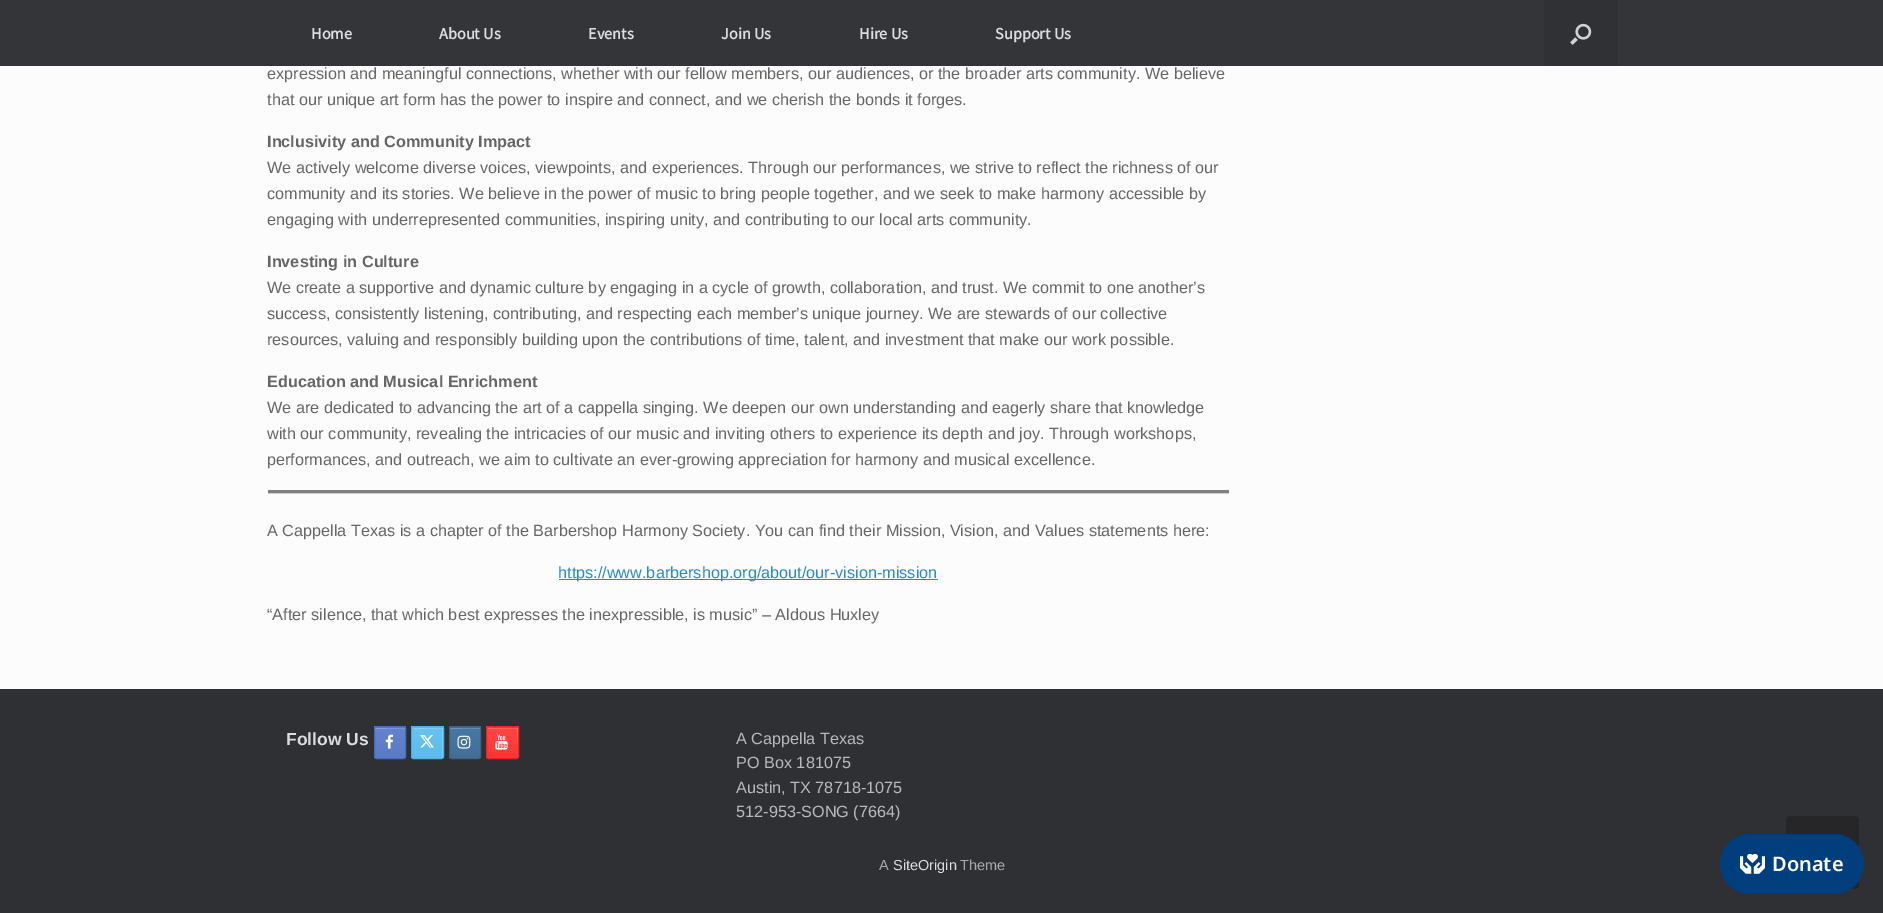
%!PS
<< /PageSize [1883 913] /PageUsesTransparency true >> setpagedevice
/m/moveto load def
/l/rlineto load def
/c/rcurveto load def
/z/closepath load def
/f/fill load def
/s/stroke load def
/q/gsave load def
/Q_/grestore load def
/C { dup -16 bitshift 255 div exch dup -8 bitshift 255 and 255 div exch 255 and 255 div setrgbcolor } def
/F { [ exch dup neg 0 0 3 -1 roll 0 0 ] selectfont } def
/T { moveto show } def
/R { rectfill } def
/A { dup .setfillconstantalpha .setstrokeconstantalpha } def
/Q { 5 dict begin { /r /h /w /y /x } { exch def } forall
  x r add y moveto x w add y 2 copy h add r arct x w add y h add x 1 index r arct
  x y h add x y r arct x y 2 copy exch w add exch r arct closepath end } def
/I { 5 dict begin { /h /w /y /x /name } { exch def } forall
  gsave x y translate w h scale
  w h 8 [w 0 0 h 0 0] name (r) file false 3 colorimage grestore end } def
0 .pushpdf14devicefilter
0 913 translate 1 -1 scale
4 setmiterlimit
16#2F3033 C
0 0 1883 913 R
16#343538 C
0 0 1883 66 R
/SourceSansPro-Bold 16.25 F
16#DDDDDD C
(Home) 311 39 T
(About Us) 439 39 T
(Events) 588 39 T
(Join Us) 721 39 T
(Hire Us) 859 39 T
(Support Us) 995 39 T
16#303134 C
1544 0 74 66 R
(1.rgb) 1570 23 22 22 I
16#FCFCFC C
0 66 1883 623 R
/LiberationSans-Regular 16.25 F
16#666666 C
(expression and meaningful connections, whether with our fellow members, our audiences, or the broader arts community. We believe) 267 79 T
(that our unique art form has the power to inspire and connect, and we cherish the bonds it forges.) 267 105 T
/LiberationSans-Bold 16.25 F
(Inclusivity and Community Impact) 267 147 T
/LiberationSans-Regular 16.25 F
(We actively welcome diverse voices, viewpoints, and experiences. Through our performances, we strive to reflect the richness of our) 267 173 T
(community and its stories. We believe in the power of music to bring people together, and we seek to make harmony accessible by) 267 199 T
(engaging with underrepresented communities, inspiring unity, and contributing to our local arts community.) 267 225 T
/LiberationSans-Bold 16.25 F
(Investing in Culture) 267 267 T
/LiberationSans-Regular 16.25 F
(We create a supportive and dynamic culture by engaging in a cycle of growth, collaboration, and trust. We commit to one another’s) 267 293 T
(success, consistently listening, contributing, and respecting each member’s unique journey. We are stewards of our collective) 267 319 T
(resources, valuing and responsibly building upon the contributions of time, talent, and investment that make our work possible.) 267 345 T
/LiberationSans-Bold 16.25 F
(Education and Musical Enrichment) 267 387 T
/LiberationSans-Regular 16.25 F
(We are dedicated to advancing the art of a cappella singing. We deepen our own understanding and eagerly share that knowledge) 267 413 T
(with our community, revealing the intricacies of our music and inviting others to experience its depth and joy. Through workshops,) 267 439 T
(performances, and outreach, we aim to cultivate an ever-growing appreciation for harmony and musical excellence.) 267 465 T
16#CCCCCC C
268 493 961 1 R
16#808080 C
268 490 961 3 R
16#666666 C
(A Cappella Texas is a chapter of the Barbershop Harmony Society. You can find their Mission, Vision, and Values statements here:) 267 536 T
16#248CC8 C
559 579 379 1 R
(https://www.barbershop.org/about/our-vision-mission) 558 578 T
16#666666 C
(“After silence, that which best expresses the inexpressible, is music” – Aldous Huxley) 267 620 T
/LiberationSans-Bold 17.5 F
16#DDDDDD C
(Follow Us) 286 745 T
q
374 726 32 33 2.5 Q clip newpath
q 374 726 m 32 0 l 0 2 l -32 0 l z clip newpath
<< /ShadingType 2 /ColorSpace /DeviceRGB /Coords [390 728 390 698] /Extend [true true] /Function << /FunctionType 2 /Domain [0 1] /C0 [.349 .478 .78] /C1 [.392 .514 .796] /N 1 >> >> shfill Q_
Q_
q 374 728 m 32 0 l 0 30 l -32 0 l z clip newpath
<< /ShadingType 2 /ColorSpace /DeviceRGB /Coords [390 758 390 728] /Extend [true true] /Function << /FunctionType 2 /Domain [0 1] /C0 [.349 .478 .78] /C1 [.392 .514 .796] /N 1 >> >> shfill Q_
16#839CD5 C
376 729 m 5 0 28 -1 29 0 c 0 -.5 -.5 -1 -1 -1 c -28 0 l -.5 0 -1 .5 -1 1 c 0 .5 l z f
16#466BC1 C
374.5 726.5 31 32 2 Q s
(2.rgb) 385 734 9 15 I
q
411 726 33 33 2.5 Q clip newpath
q 411 726 m 33 0 l 0 2 l -33 0 l z clip newpath
<< /ShadingType 2 /ColorSpace /DeviceRGB /Coords [428 728 428 698] /Extend [true true] /Function << /FunctionType 2 /Domain [0 1] /C0 [.357 .737 .925] /C1 [.412 .761 .933] /N 1 >> >> shfill Q_
Q_
q 411 728 m 33 0 l 0 30 l -33 0 l z clip newpath
<< /ShadingType 2 /ColorSpace /DeviceRGB /Coords [428 758 428 728] /Extend [true true] /Function << /FunctionType 2 /Domain [0 1] /C0 [.357 .737 .925] /C1 [.412 .761 .933] /N 1 >> >> shfill Q_
0.2 A
16#FFFFFF C
414 729 m 25.5 -.5 l 2.5 .5 l 0 12.5 l .5 16.5 l 1.5 -1 .5 -5.5 .5 -5.5 c 0 -24 l -1 -.5 l -28 0 l -1 .5 l 0 1 l z f
1 A
16#44B3E9 C
411.5 726.5 32 32 2 Q s
(3.rgb) 420 735 14 13 I
q
449 726 32 33 2.5 Q clip newpath
q 449 726 m 32 0 l 0 2 l -32 0 l z clip newpath
<< /ShadingType 2 /ColorSpace /DeviceRGB /Coords [465 728 465 698] /Extend [true true] /Function << /FunctionType 2 /Domain [0 1] /C0 [.259 .435 .596] /C1 [.278 .467 .639] /N 1 >> >> shfill Q_
Q_
q 449 728 m 32 0 l 0 30 l -32 0 l z clip newpath
<< /ShadingType 2 /ColorSpace /DeviceRGB /Coords [465 758 465 728] /Extend [true true] /Function << /FunctionType 2 /Domain [0 1] /C0 [.259 .435 .596] /C1 [.278 .467 .639] /N 1 >> >> shfill Q_
16#6C92B5 C
451 729 m 5 0 28 -1 29 0 c 0 -.5 -.5 -1 -1 -1 c -28 0 l -.5 0 -1 .5 -1 1 c 0 .5 l z f
16#3A6286 C
449.5 726.5 31 32 2 Q s
(4.rgb) 457 735 14 14 I
q
486 726 33 33 2.5 Q clip newpath
q 486 726 m 33 0 l 0 2 l -33 0 l z clip newpath
<< /ShadingType 2 /ColorSpace /DeviceRGB /Coords [503 728 503 698] /Extend [true true] /Function << /FunctionType 2 /Domain [0 1] /C0 [1 .212 .208] /C1 [1 .271 .267] /N 1 >> >> shfill Q_
Q_
q 486 728 m 33 0 l 0 30 l -33 0 l z clip newpath
<< /ShadingType 2 /ColorSpace /DeviceRGB /Coords [503 758 503 728] /Extend [true true] /Function << /FunctionType 2 /Domain [0 1] /C0 [1 .212 .208] /C1 [1 .271 .267] /N 1 >> >> shfill Q_
0.2 A
16#FFFFFF C
489 729 m 25.5 -.5 l 2.5 .5 l 1 15 l 0 -12.5 l 0 -5 0 -3.5 -5.5 -3.5 c -19 0 l -2 0 -5.5 -1.5 -5.5 1.5 c z f
1 A
16#FF1D1B C
486.5 726.5 32 32 2 Q s
(5.rgb) 495 734 13 16 I
/LiberationSans-Regular 16.25 F
16#B9B9B9 C
(A Cappella Texas) 736 744 T
(PO Box 181075) 736 768 T
(Austin, TX 78718-1075) 736 793 T
(512-953-SONG \(7664\)) 736 817 T
16#262629 C
1786 816 73 73 4 Q f
16#003E7E C
1720 834 144 60 30 Q f
(6.rgb) 1740 854 25 20 I
/NotoSans-SemiBold 20 F
16#FFFFFF C
(Donate) 1772 871 T
/LiberationSans-Regular 14.5 F
16#AAAAAA C
(A) 879 870 T
16#DDDDDD C
(SiteOrigin) 893 870 T
16#AAAAAA C
(Theme) 960 870 T
.poppdf14devicefilter showpage
